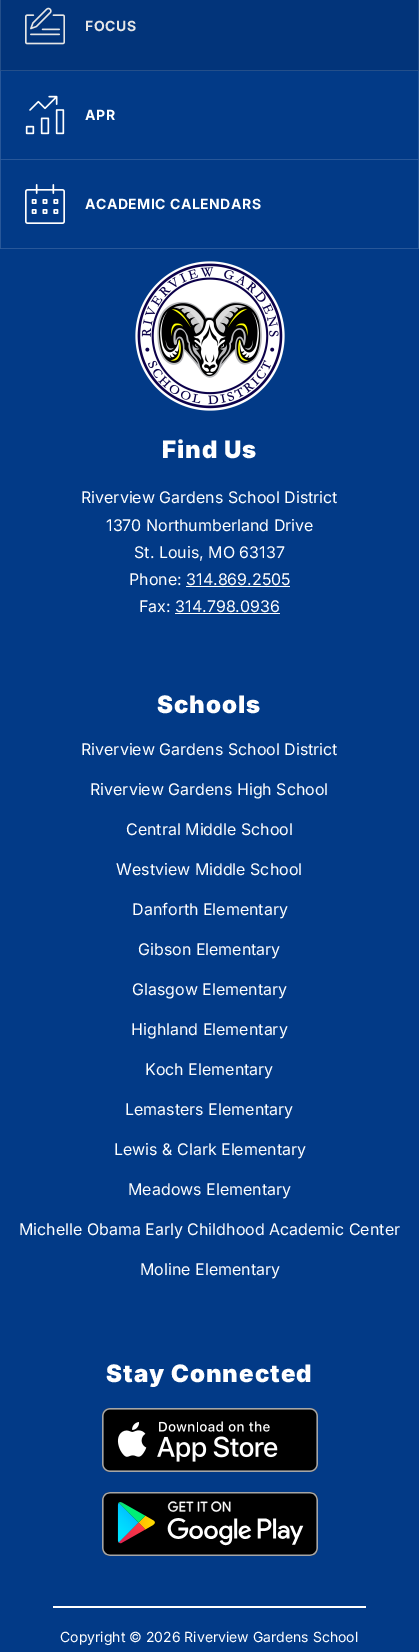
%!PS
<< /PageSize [419 1652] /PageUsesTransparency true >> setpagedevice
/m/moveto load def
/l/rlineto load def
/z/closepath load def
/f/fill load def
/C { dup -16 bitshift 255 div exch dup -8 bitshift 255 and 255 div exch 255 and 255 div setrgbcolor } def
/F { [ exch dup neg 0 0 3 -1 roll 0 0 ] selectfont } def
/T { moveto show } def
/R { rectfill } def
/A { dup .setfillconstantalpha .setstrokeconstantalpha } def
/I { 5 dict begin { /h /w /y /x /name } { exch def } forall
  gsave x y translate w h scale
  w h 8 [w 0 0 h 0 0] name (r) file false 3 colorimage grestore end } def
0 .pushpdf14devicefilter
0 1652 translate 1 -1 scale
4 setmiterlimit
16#023A87 C
0 0 419 1652 R
16#02347A C
0 0 419 71 R
16#244F8A C
419 -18 m 0 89 l -1 -1 l 0 -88 l z f
0.15 A
16#E6E6E6 C
419 71 m -419 0 l 1 -1 l 417 0 l z f
0 71 m 0 -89 l 1 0 l 0 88 l z f
1 A
(1.rgb) 25 7 40 38 I
/Inter-Bold 14 F
85 31 m .5 0 (FOCUS) ashow
16#285899 C
419 71 m 0 89 l -1 -1 l 0 -88 l z f
0.15 A
16#FFFFFF C
419 160 m -419 0 l 1 -1 l 417 0 l z f
0 160 m 0 -89 l 1 0 l 0 88 l z f
1 A
(2.rgb) 25 95 40 40 I
85 120 m .5 0 (APR) ashow
16#285899 C
419 160 m 0 89 l -1 -1 l 0 -88 l z f
0.15 A
16#FFFFFF C
419 249 m -419 0 l 1 -1 l 417 0 l z f
0 249 m 0 -89 l 1 0 l 0 88 l z f
1 A
(3.rgb) 25 184 40 40 I
85 209 m .5 0 (ACADEMIC CALENDARS) ashow
(4.rgb) 135 261 150 150 I
/Inter-Black 24 F
162 458 m 1 0 (Find Us) ashow
/Inter-Regular 16 F
(Riverview Gardens School District) 81 503 T
(1370 Northumberland Drive) 106 531 T
(St. Louis, MO 63137) 134 558 T
(Phone: 314.869.2505) 129 585 T
186 586 104 1 R
(Fax: 314.798.0936) 139 612 T
175 613 105 1 R
/Inter-Black 24 F
157 713 m 1 0 (Schools) ashow
/Inter-Regular 16 F
(Riverview Gardens School District) 81 755 T
(Riverview Gardens High School) 90 795 T
(Central Middle School) 126 835 T
(Westview Middle School) 116 875 T
(Danforth Elementary) 132 915 T
(Gibson Elementary) 138 955 T
(Glasgow Elementary) 132 995 T
(Highland Elementary) 131 1035 T
(Koch Elementary) 145 1075 T
(Lemasters Elementary) 125 1115 T
(Lewis & Clark Elementary) 114 1155 T
(Meadows Elementary) 128 1195 T
(Michelle Obama Early Childhood Academic Center) 19 1235 T
(Moline Elementary) 140 1275 T
/Inter-Black 24 F
106 1382 m 1 0 (Stay Connected) ashow
(5.rgb) 102 1408 216 64 I
(6.rgb) 102 1492 216 64 I
53 1606 313 2 R
/Inter-Regular 14 F
(Copyright © 2026 Riverview Gardens School) 60 1642 T
.poppdf14devicefilter showpage
